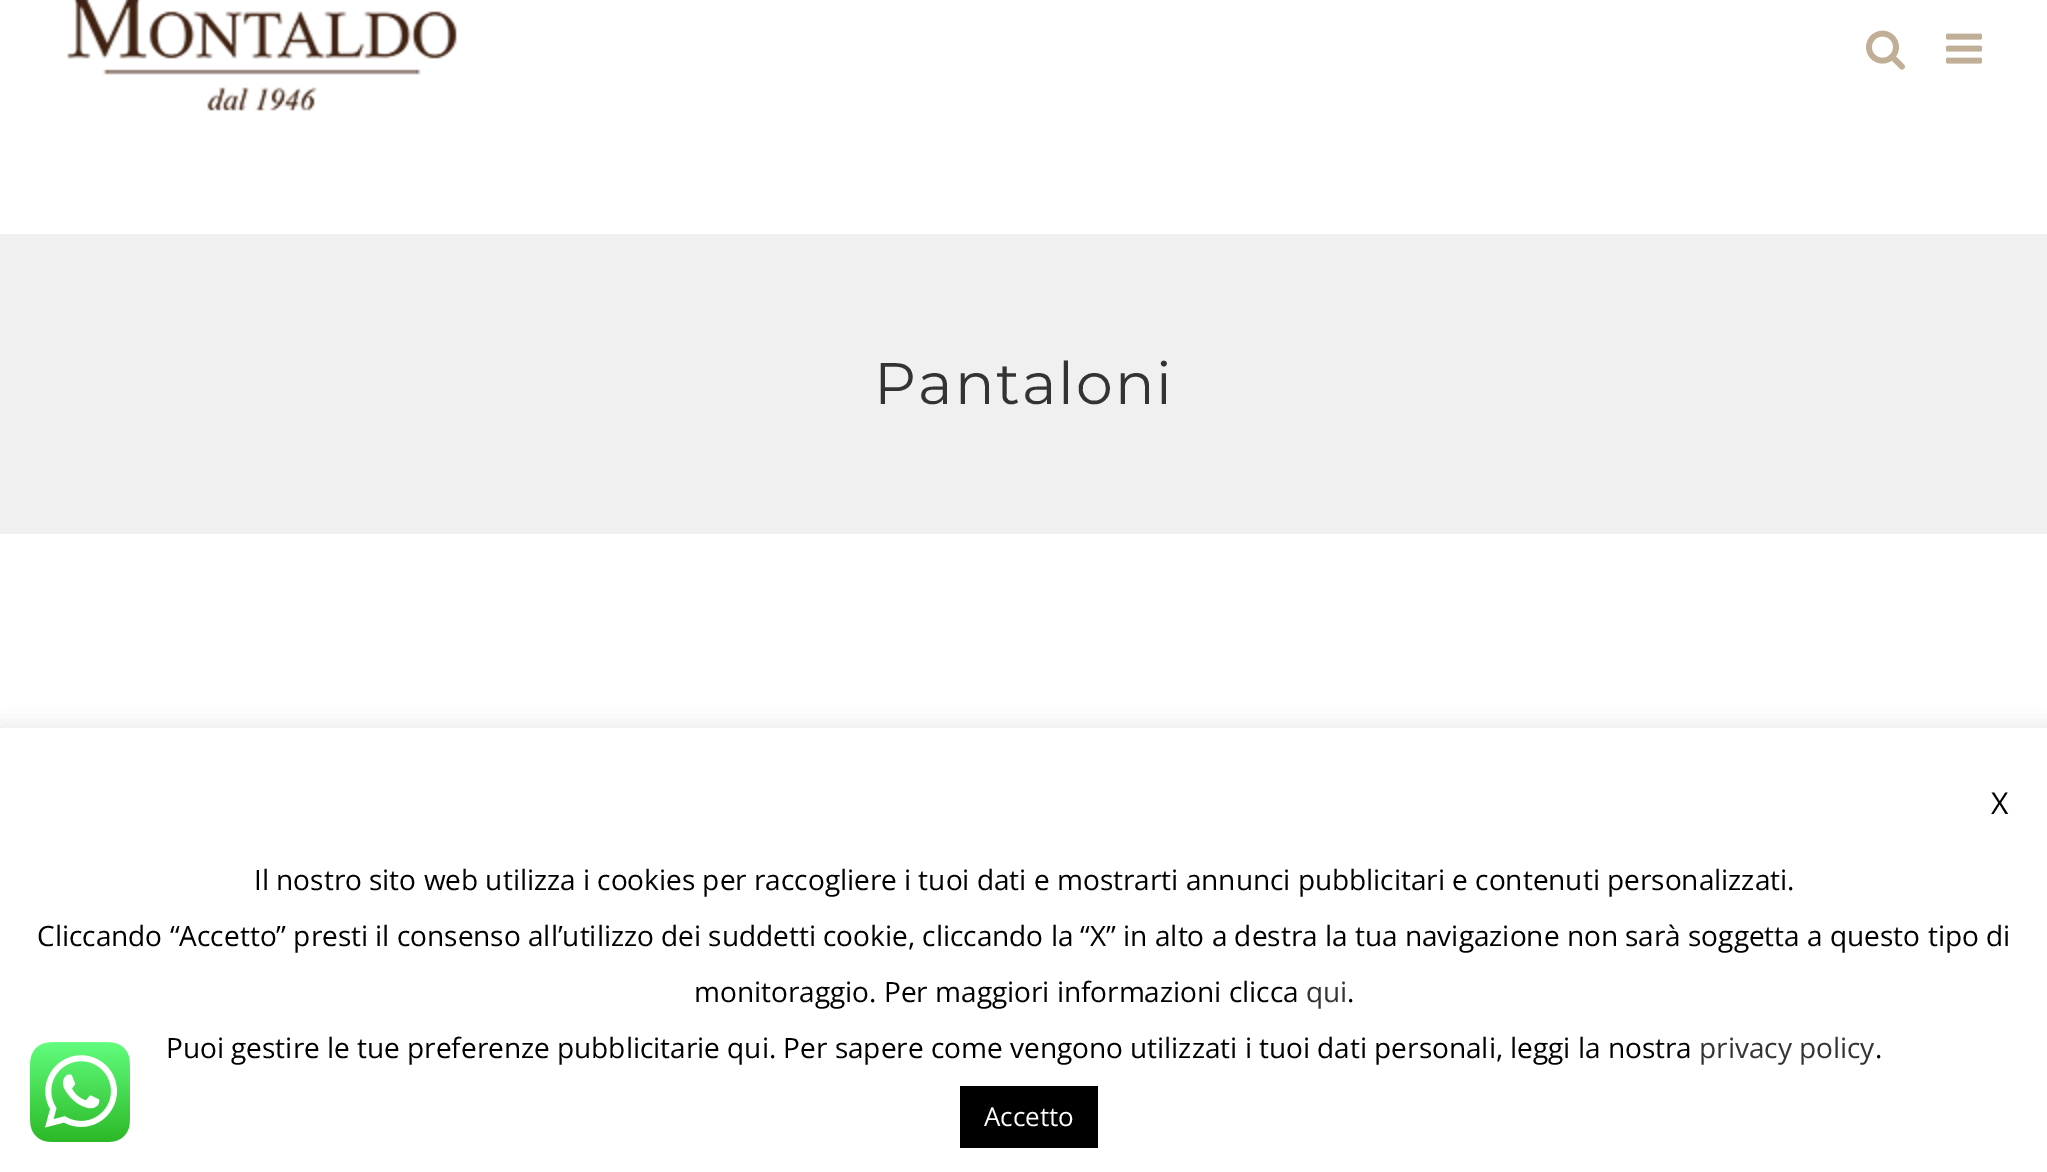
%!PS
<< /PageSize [2047 1172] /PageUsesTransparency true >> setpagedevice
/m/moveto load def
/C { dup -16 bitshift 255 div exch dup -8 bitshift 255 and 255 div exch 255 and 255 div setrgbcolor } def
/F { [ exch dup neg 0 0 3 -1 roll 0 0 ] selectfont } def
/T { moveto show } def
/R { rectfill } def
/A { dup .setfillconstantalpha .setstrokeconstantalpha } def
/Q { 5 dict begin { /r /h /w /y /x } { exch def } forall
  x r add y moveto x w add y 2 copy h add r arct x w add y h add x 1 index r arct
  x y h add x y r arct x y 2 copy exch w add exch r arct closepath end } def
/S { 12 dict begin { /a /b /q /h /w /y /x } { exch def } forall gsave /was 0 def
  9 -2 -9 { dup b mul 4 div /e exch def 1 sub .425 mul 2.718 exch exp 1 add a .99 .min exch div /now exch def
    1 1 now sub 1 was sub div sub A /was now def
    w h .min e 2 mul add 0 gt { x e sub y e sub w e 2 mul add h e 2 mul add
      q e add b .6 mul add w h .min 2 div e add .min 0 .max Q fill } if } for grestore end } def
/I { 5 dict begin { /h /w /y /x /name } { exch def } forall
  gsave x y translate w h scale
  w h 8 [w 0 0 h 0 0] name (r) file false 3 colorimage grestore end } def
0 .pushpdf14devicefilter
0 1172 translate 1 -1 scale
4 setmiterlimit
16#FFFFFF C
0 0 2047 1172 R
(1.rgb) 67 0 390 111 I
(2.rgb) 1866 30 39 40 I
(3.rgb) 1946 33 36 31 I
16#F0F0F0 C
0 234 2047 300 R
/Montserrat-Thin 58.5 F
16#333333 C
874 404 m 2 0 (Pantaloni) ashow
16#ACABAB C
0 726 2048 444 0 10 .3 S
16#FFFFFF C
0 728 2047 444 R
/OpenSans-Regular 30 F
16#000000 C
(X) 1991 814 T
/OpenSans-Regular 28 F
(Il nostro sito web utilizza i cookies per raccogliere i tuoi dati e mostrarti annunci pubblicitari e contenuti personalizzati.) 254 890 T
(Cliccando “Accetto” presti il consenso all’utilizzo dei suddetti cookie, cliccando la “X” in alto a destra la tua navigazione non sarà soggetta a questo tipo di) 37 946 T
(monitoraggio. Per maggiori informazioni clicca) 694 1002 T
16#333333 C
(qui) 1306 1002 T
16#000000 C
(.) 1347 1002 T
(Puoi gestire le tue preferenze pubblicitarie qui. Per sapere come vengono utilizzati i tuoi dati personali, leggi la nostra) 166 1058 T
16#333333 C
(privacy policy) 1699 1058 T
16#000000 C
(.) 1875 1058 T
960 1086 138 62 R
/OpenSans-Regular 26 F
16#FFFFFF C
(Accetto) 984 1126 T
(4.rgb) 30 1042 100 100 I
.poppdf14devicefilter showpage
